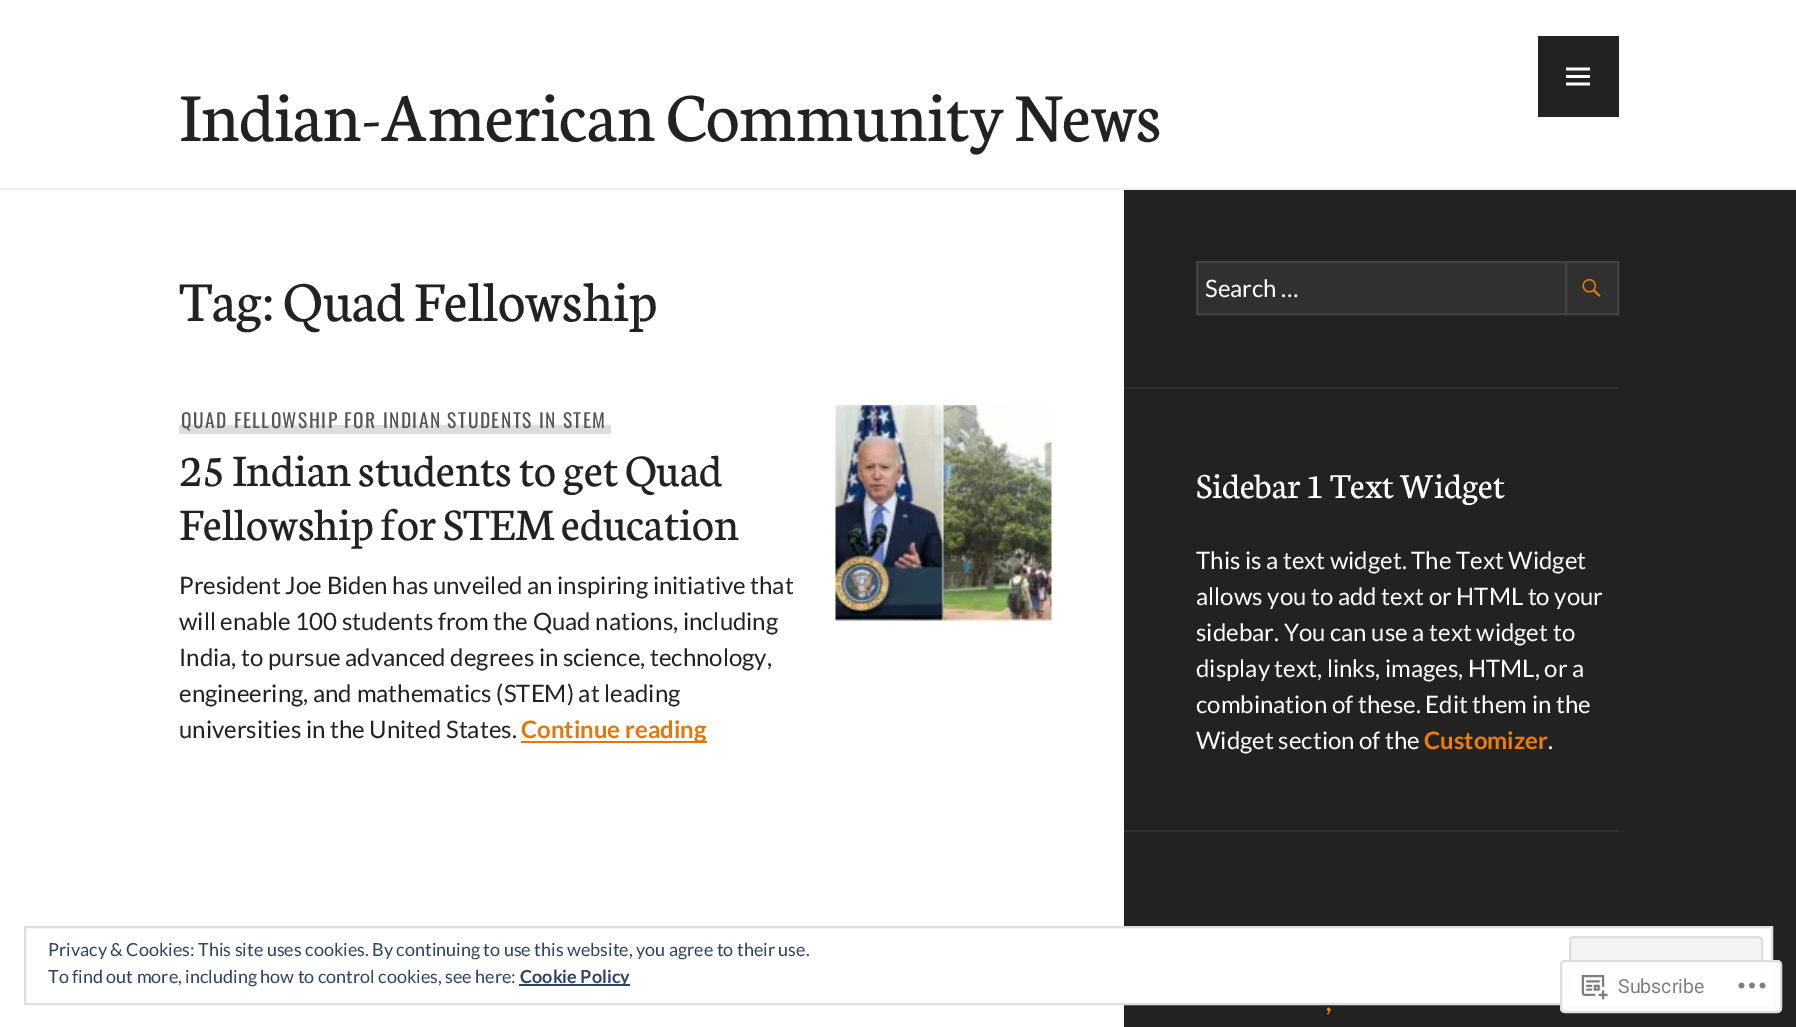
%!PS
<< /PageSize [1796 1027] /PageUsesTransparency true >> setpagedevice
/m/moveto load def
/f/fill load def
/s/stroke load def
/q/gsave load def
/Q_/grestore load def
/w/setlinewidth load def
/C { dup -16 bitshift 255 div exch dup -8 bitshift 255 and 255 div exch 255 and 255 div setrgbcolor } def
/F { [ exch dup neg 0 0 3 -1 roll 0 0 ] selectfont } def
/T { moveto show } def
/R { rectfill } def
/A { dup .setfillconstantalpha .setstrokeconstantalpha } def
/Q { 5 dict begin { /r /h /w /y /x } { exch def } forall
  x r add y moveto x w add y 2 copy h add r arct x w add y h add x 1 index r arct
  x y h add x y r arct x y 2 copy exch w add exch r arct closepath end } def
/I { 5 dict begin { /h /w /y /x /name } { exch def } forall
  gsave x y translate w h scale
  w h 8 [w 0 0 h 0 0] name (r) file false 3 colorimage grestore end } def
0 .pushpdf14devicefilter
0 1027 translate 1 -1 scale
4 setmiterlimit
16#FFFFFF C
0 0 1796 1027 R
16#222222 C
1538 36 81 81 R
(1.rgb) 1566 67 24 19 I
16#EEEEEE C
0 188 1796 2 R
/Neuton-Regular 73.5 F
16#222222 C
(Indian-American Community News) 179 141 T
1124 190 672 837 R
/Neuton-Regular 60 F
(Tag: Quad Fellowship) 179 321 T
16#DDDDDD C
179 425 432 9 R
/Oswald-Regular 19.5 F
16#555555 C
181 428 m 1.45 0 (QUAD FELLOWSHIP FOR INDIAN STUDENTS IN STEM) ashow
/Neuton-Regular 48 F
16#222222 C
(25 Indian students to get Quad) 179 486 T
(Fellowship for STEM education) 179 540 T
(2.rgb) 835 405 217 216 I
/Lato-Regular 24 F
(President Joe Biden has unveiled an inspiring initiative that) 179 594 T
(will enable 100 students from the Quad nations, including) 179 630 T
(India, to pursue advanced degrees in science, technology,) 179 666 T
(engineering, and mathematics \(STEM\) at leading) 179 702 T
(universities in the United States.) 179 738 T
16#E4770A C
521 741 186 2 R
/Lato-Bold 24 F
(Continue reading) 521 738 T
16#303030 C
1124 387 495 2 R
1198 263 367 50 R
16#424242 C
2 w
1197 262 421 52 rectstroke
16#303030 C
1567 263 50 50 R
(3.rgb) 1582 279 19 18 I
16#424242 C
1566 262 52 52 rectstroke
/Lato-Regular 24 F
16#FFFFFF C
(Search …) 1205 297 T
16#303030 C
1124 830 495 2 R
/Neuton-Regular 37.5 F
16#FFFFFF C
(Sidebar 1 Text Widget) 1196 498 T
/Lato-Regular 24 F
(This is a text widget. The Text Widget) 1196 569 T
(allows you to add text or HTML to your) 1196 605 T
(sidebar. You can use a text widget to) 1196 641 T
(display text, links, images, HTML, or a) 1196 677 T
(combination of these. Edit them in the) 1196 713 T
(Widget section of the) 1196 749 T
/Lato-Bold 24 F
16#EF7D0B C
(Customizer) 1424 749 T
/Lato-Regular 24 F
16#FFFFFF C
(.) 1548 749 T
/Lato-Bold 24 F
16#EF7D0B C
(,) 1326 1011 T
16#FFFFFF C
1124 928 647 75 R
16#DEDEDE C
25 927 1747 77 rectstroke
/Lato-Regular 18 F
16#2E4467 C
(Privacy & Cookies: This site uses cookies. By continuing to use this website, you agree to their use.) 48 956 T
16#F3F3F3 C
1570 937 192 57 4 Q q f Q_
16#DEDEDE C
s
16#2E4467 C
(To find out more, including how to control cookies, see here:) 48 983 T
519 984 111 2 R
/Lato-Bold 18 F
(Cookie Policy) 520 983 T
0.98 A
16#FFFFFF C
1560 960 222 53 5 Q f
16#DCDCDE C
1561 961 220 51 4 Q s
1 A
(4.rgb) 1581 975 27 25 I
/Roboto-Regular 19.5 F
16#7B7F84 C
(Subscribe) 1618 993 T
(5.rgb) 1738 982 28 7 I
.poppdf14devicefilter showpage
